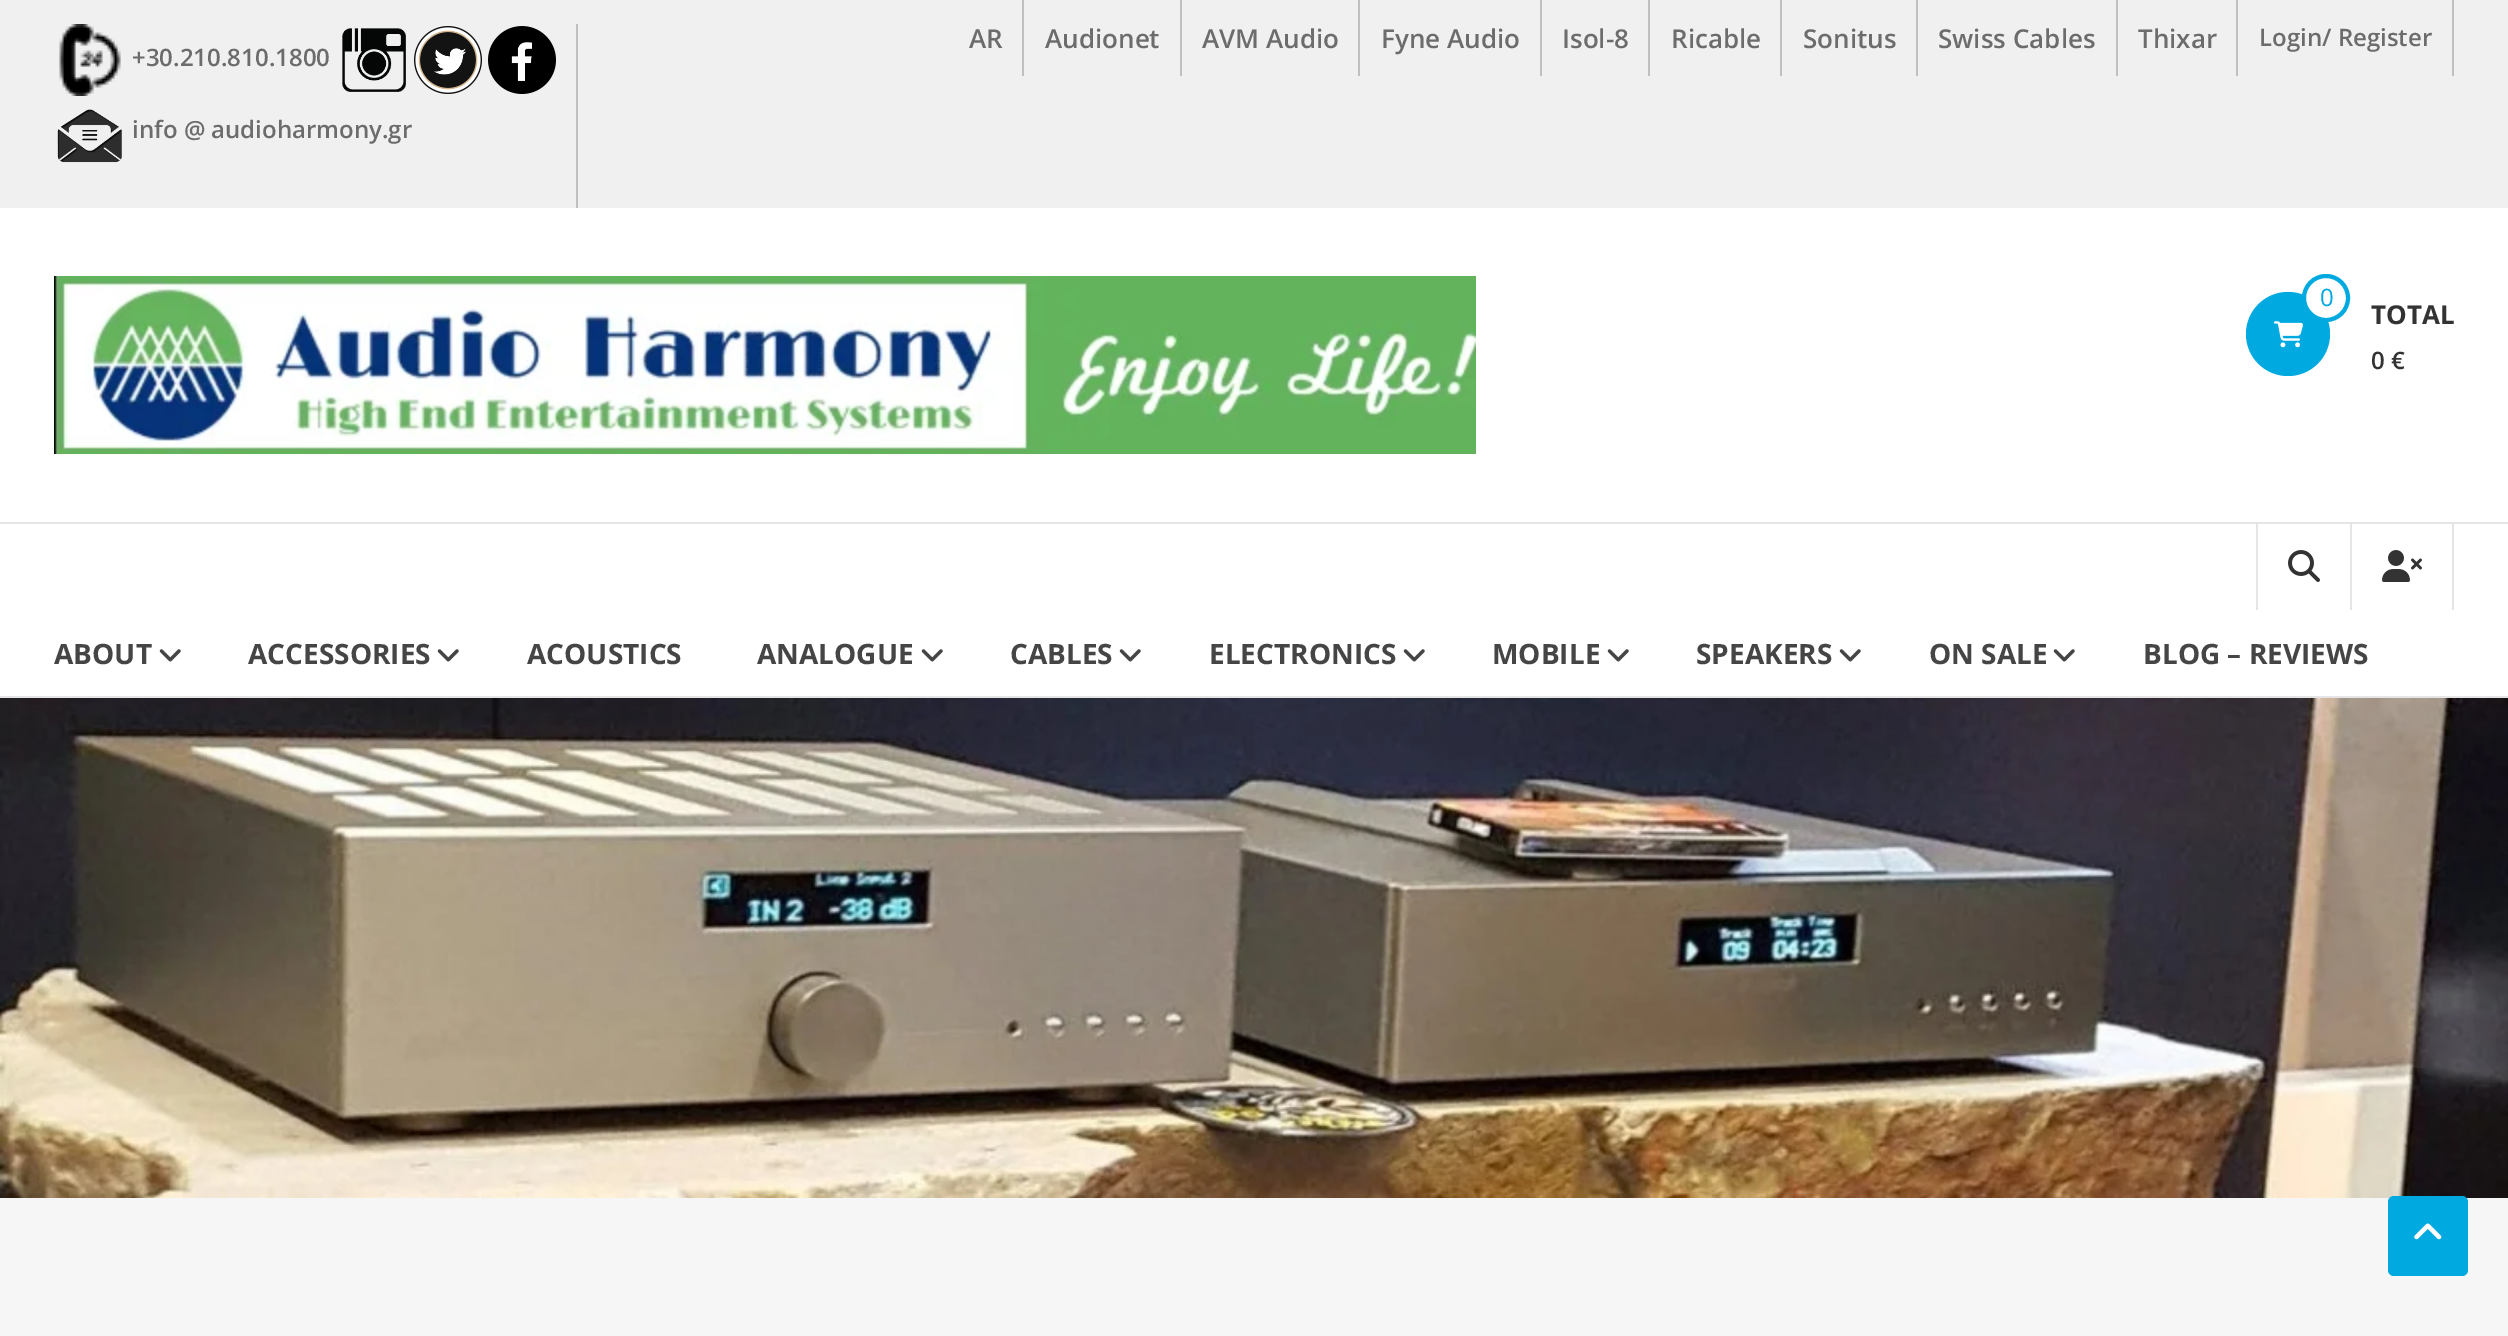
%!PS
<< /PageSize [2508 1336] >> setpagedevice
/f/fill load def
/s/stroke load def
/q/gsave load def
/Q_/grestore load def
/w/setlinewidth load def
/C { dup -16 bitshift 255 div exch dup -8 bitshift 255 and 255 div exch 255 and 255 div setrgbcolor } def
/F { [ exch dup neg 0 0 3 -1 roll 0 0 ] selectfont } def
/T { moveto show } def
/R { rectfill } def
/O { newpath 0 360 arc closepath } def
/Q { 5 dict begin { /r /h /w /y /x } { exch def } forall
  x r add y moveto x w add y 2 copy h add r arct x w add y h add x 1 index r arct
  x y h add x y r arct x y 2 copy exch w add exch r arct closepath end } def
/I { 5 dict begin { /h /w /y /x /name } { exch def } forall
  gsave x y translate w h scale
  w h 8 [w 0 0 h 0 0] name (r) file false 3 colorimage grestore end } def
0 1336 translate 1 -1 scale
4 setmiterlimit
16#FFFFFF C
0 0 2508 1336 R
16#F0F0F0 C
0 0 2508 208 R
16#C0BFBF C
1022 0 2 76 R
/OpenSans-SemiBold 26 F
16#6D6C6C C
(AR) 969 48 T
16#C0BFBF C
1180 0 2 76 R
16#6D6C6C C
(Audionet) 1045 48 T
16#C0BFBF C
1358 0 2 76 R
16#6D6C6C C
(AVM Audio) 1202 48 T
16#C0BFBF C
1540 0 2 76 R
16#6D6C6C C
(Fyne Audio) 1381 48 T
16#C0BFBF C
1648 0 2 76 R
16#6D6C6C C
(Isol-8) 1562 48 T
16#C0BFBF C
1780 0 2 76 R
16#6D6C6C C
(Ricable) 1671 48 T
16#C0BFBF C
1916 0 2 76 R
16#6D6C6C C
(Sonitus) 1803 48 T
16#C0BFBF C
2116 0 2 76 R
16#6D6C6C C
(Swiss Cables) 1938 48 T
16#C0BFBF C
2236 0 2 76 R
16#6D6C6C C
(Thixar) 2138 48 T
16#C0BFBF C
2452 0 2 76 R
/OpenSans-SemiBold 24 F
16#6D6C6C C
(Login/ Register) 2259 46 T
16#C0BFBF C
576 24 2 184 R
(1.rgb) 59 24 62 72 I
16#6D6C6C C
(+30.210.810.1800) 132 66 T
(2.rgb) 342 28 64 64 I
(3.rgb) 414 26 68 68 I
(4.rgb) 488 26 68 68 I
(5.rgb) 57 109 65 54 I
(info @ audioharmony.gr) 132 138 T
(6.rgb) 54 276 1422 178 I
16#00A9E0 C
2288 334 42 O f
(7.rgb) 2274 321 29 27 I
16#FFFFFF C
2326 298 22 O q f Q_
16#00A9E0 C
4 w
s
/OpenSans-Regular 24 F
(0) 2320 306 T
/OpenSans-Bold 26 F
16#333333 C
(TOTAL) 2371 324 T
/OpenSans-SemiBold 24 F
(0 €) 2371 369 T
16#E5E5E5 C
0 522 2508 2 R
0 696 2508 2 R
2256 524 2 86 R
(8.rgb) 2288 550 32 32 I
2452 524 2 86 R
2350 524 2 86 R
(9.rgb) 2382 550 40 32 I
/OpenSans-Bold 28 F
16#454545 C
(ABOUT) 54 664 T
(10.rgb) 159 649 22 13 I
(ACCESSORIES) 248 664 T
(10.rgb) 437 649 22 13 I
(ACOUSTICS) 527 664 T
(ANALOGUE) 757 664 T
(10.rgb) 921 649 22 13 I
(CABLES) 1010 664 T
(10.rgb) 1119 649 22 13 I
(ELECTRONICS) 1209 664 T
(10.rgb) 1403 649 22 13 I
(MOBILE) 1492 664 T
(10.rgb) 1607 649 22 13 I
(SPEAKERS) 1696 664 T
(10.rgb) 1839 649 22 13 I
(ON SALE) 1929 664 T
(10.rgb) 2053 649 22 13 I
(BLOG – REVIEWS) 2143 664 T
(11.rgb) 0 698 2508 500 I
16#F6F6F6 C
0 1198 2508 138 R
16#00A9E0 C
2388 1196 80 80 6 Q f
(12.rgb) 2414 1223 28 17 I
showpage
